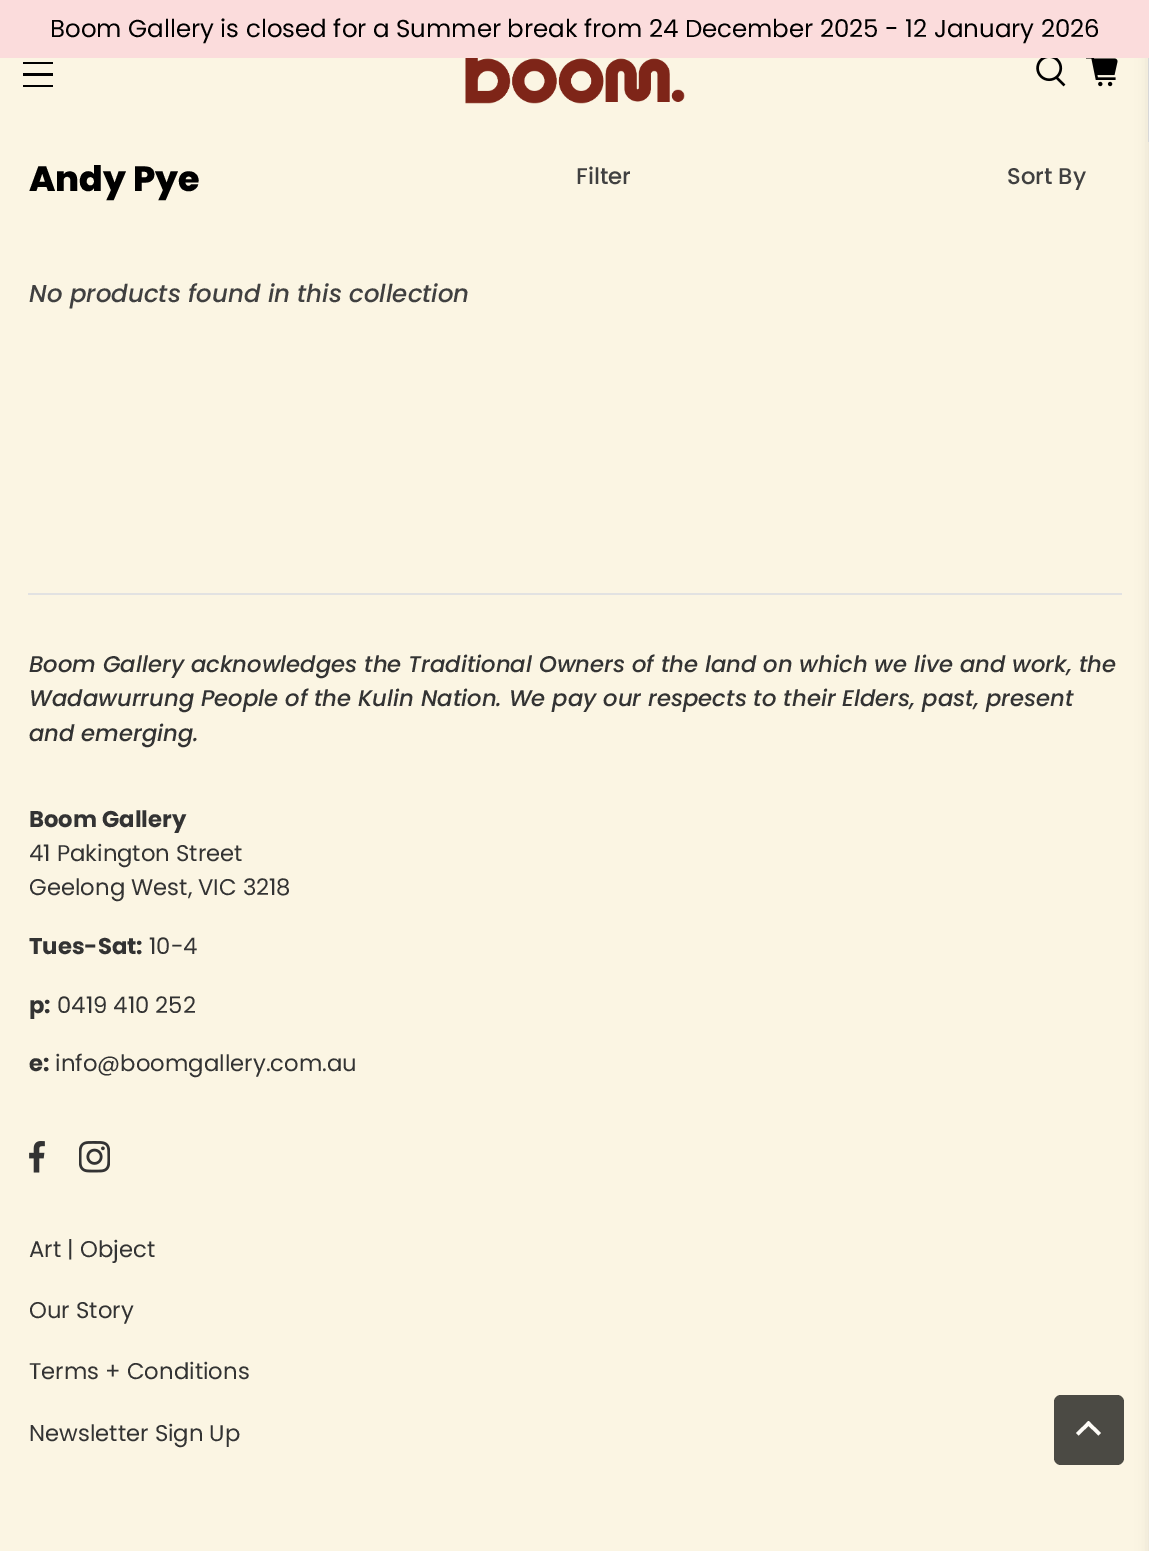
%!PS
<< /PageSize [1149 1551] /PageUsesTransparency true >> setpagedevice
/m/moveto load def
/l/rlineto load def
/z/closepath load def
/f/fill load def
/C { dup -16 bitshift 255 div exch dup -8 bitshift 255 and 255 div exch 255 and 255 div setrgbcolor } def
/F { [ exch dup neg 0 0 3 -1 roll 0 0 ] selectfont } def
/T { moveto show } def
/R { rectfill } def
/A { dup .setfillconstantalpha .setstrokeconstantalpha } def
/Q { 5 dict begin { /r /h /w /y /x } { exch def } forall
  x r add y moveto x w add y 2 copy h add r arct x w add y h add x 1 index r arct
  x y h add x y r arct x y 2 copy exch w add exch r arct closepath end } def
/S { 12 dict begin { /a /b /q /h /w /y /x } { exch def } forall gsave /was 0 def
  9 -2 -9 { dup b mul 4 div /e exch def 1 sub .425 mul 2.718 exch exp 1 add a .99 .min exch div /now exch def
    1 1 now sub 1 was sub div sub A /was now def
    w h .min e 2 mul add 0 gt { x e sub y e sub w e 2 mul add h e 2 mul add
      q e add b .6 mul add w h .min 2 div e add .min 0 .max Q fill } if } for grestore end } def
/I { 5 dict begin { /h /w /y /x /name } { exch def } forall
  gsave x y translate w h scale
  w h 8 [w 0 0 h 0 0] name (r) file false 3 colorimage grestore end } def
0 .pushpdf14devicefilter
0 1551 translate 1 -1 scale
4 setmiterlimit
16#FBF5E3 C
0 0 1149 1551 R
16#E2E2E2 C
1148 58 1 84 R
16#000000 C
23 62 30 2 R
23 73 30 3 R
23 85 30 2 R
(1.rgb) 465 58 220 46 I
(2.rgb) 1036 58 30 29 I
(3.rgb) 1086 58 32 29 I
16#0A0A0A C
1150 14 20 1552 0 7 .1 S
16#FBDCDC C
0 0 1149 58 R
/Poppins-Regular 24.5 F
16#000000 C
(Boom Gallery is closed for a Summer break from 24 December 2025 - 12 January 2026) 50 37 T
/Poppins-ExtraBold 35 F
(Andy Pye) 29 191 T
/Poppins-Medium 22.75 F
16#404040 C
(Filter) 576 184 T
(Sort By) 1007 184 T
/Poppins-MediumItalic 24.5 F
(No products found in this collection) 29 302 T
16#E2E2E2 C
28 593 1094 2 R
/Poppins-MediumItalic 22.75 F
16#333333 C
(Boom Gallery acknowledges the Traditional Owners of the land on which we live and work, the) 29 672 T
(Wadawurrung People of the Kulin Nation. We pay our respects to their Elders, past, present) 29 706 T
(and emerging.) 29 741 T
/Poppins-Bold 22.75 F
(Boom Gallery) 29 827 T
/Poppins-Regular 22.75 F
(41 Pakington Street) 29 861 T
(Geelong West, VIC 3218) 29 895 T
/Poppins-Bold 22.75 F
(Tues-Sat:) 29 954 T
/Poppins-Regular 22.75 F
(10-4) 149 954 T
/Poppins-Bold 22.75 F
(p:) 29 1013 T
/Poppins-Regular 22.75 F
(0419 410 252) 57 1013 T
/Poppins-Bold 22.75 F
(e:) 29 1071 T
/Poppins-Regular 22.75 F
(info@boomgallery.com.au) 55 1071 T
(4.rgb) 29 1141 16 32 I
(5.rgb) 79 1141 31 32 I
(Art | Object) 29 1257 T
(Our Story) 29 1318 T
(Terms + Conditions) 29 1379 T
(Newsletter Sign Up) 29 1441 T
16#4B4A44 C
1054 1395 70 70 7 Q f
16#FEFCF7 C
1078.5 1435.5 m -2.5 -2.5 l 12.5 -12 l 2.5 2.5 l z f
1098.5 1435.5 m -12.5 -12 l 2.5 -2.5 l 12.5 12 l z f
.poppdf14devicefilter showpage
